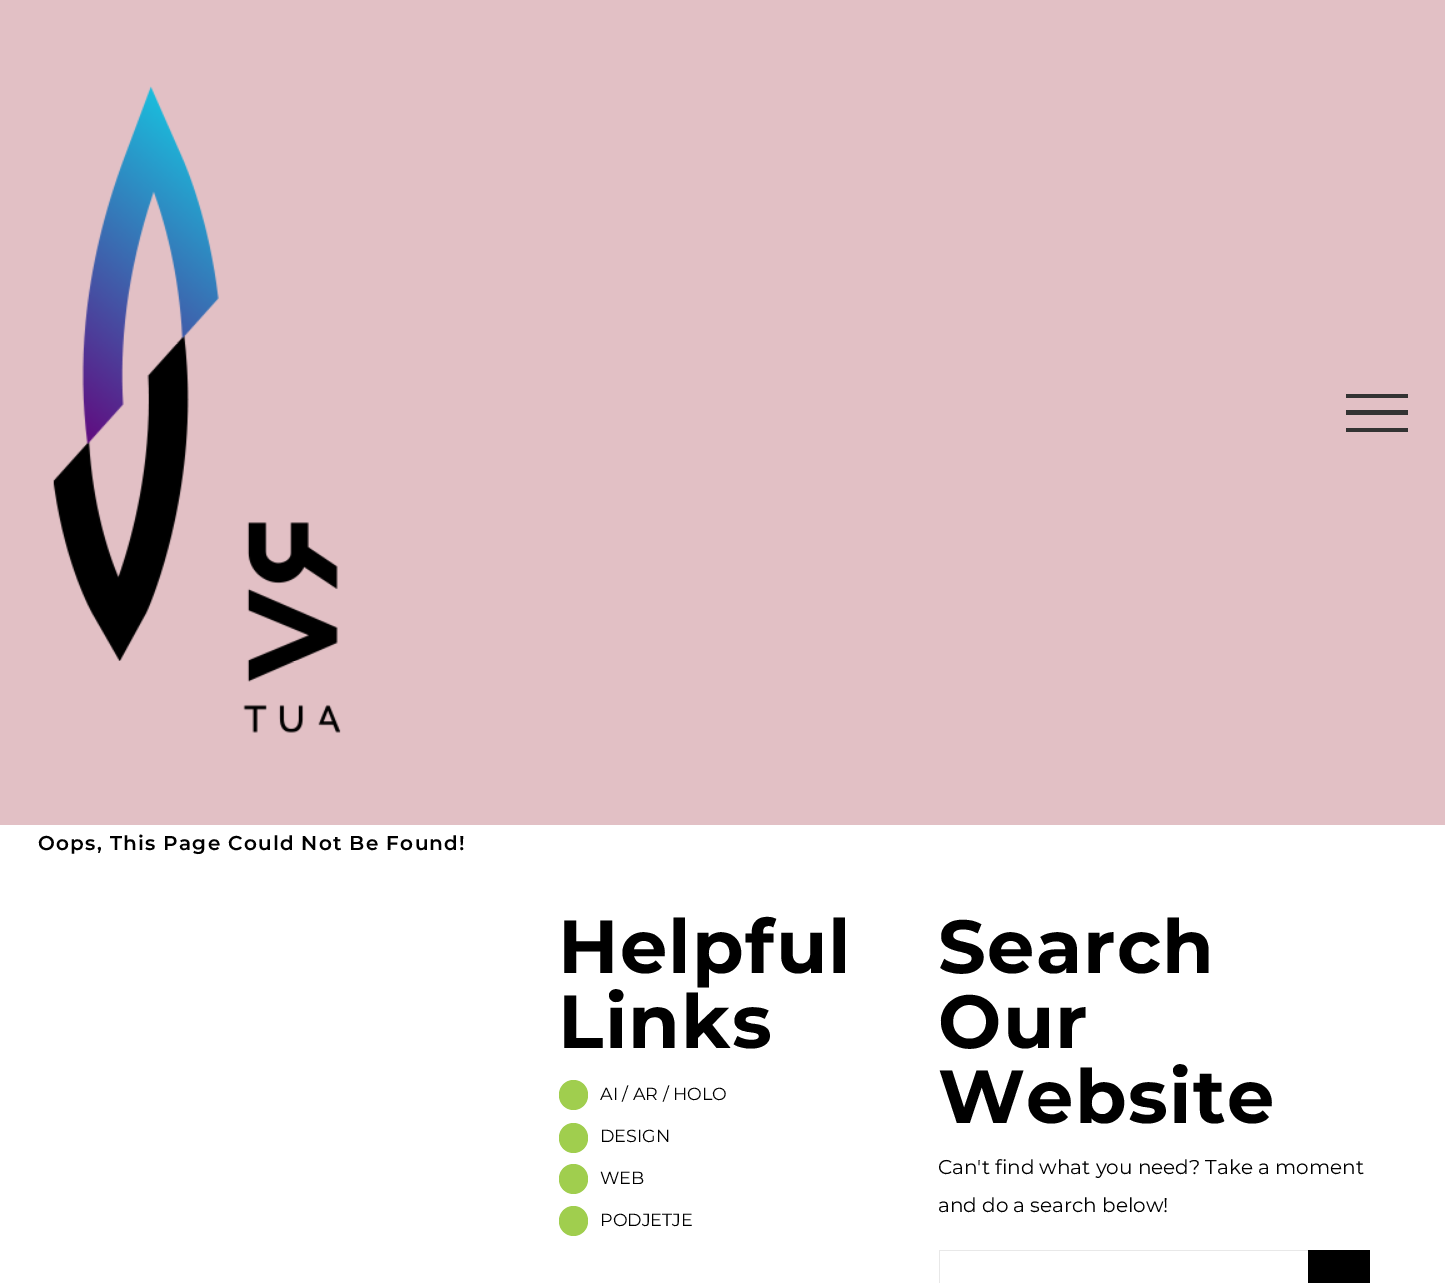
%!PS
<< /PageSize [1445 1283] >> setpagedevice
/m/moveto load def
/f/fill load def
/C { dup -16 bitshift 255 div exch dup -8 bitshift 255 and 255 div exch 255 and 255 div setrgbcolor } def
/F { [ exch dup neg 0 0 3 -1 roll 0 0 ] selectfont } def
/T { moveto show } def
/R { rectfill } def
/Q { 5 dict begin { /r /h /w /y /x } { exch def } forall
  x r add y moveto x w add y 2 copy h add r arct x w add y h add x 1 index r arct
  x y h add x y r arct x y 2 copy exch w add exch r arct closepath end } def
/I { 5 dict begin { /h /w /y /x /name } { exch def } forall
  gsave x y translate w h scale
  w h 8 [w 0 0 h 0 0] name (r) file false 3 colorimage grestore end } def
0 1283 translate 1 -1 scale
4 setmiterlimit
16#FFFFFF C
0 0 1445 1283 R
16#E2C0C5 C
0 0 1445 825 R
(1.rgb) 53 86 288 647 I
16#333333 C
1346 394 62 4 R
1346 410 62 5 R
1346 428 62 4 R
/Montserrat-SemiBold 20 F
16#000000 C
38 850 m 1.25 0 (Oops, This Page Could Not Be Found!) ashow
/Montserrat-Bold 75 F
558 973 m 1.25 0 (Helpful) ashow
558 1048 m 1.25 0 (Links) ashow
16#A0CE4E C
559 1080 29 30 14.5 Q f
/Montserrat-Regular 17.5 F
16#000000 C
(AI / AR / HOLO) 600 1100 T
16#A0CE4E C
559 1123 29 30 14.5 Q f
16#000000 C
(DESIGN) 600 1142 T
16#A0CE4E C
559 1164 29 30 14.5 Q f
16#000000 C
(WEB) 600 1184 T
16#A0CE4E C
559 1206 29 30 14.5 Q f
16#000000 C
(PODJETJE) 600 1226 T
/Montserrat-Bold 75 F
938 973 m 1.25 0 (Search) ashow
938 1048 m 1.25 0 (Our) ashow
938 1123 m 1.25 0 (Website) ashow
/Montserrat-Regular 20 F
(Can't find what you need? Take a moment) 938 1174 T
(and do a search below!) 938 1212 T
16#E8E8E8 C
939 1250 369 1 R
939 1250 1 33 R
16#000000 C
1308 1250 62 33 R
showpage
